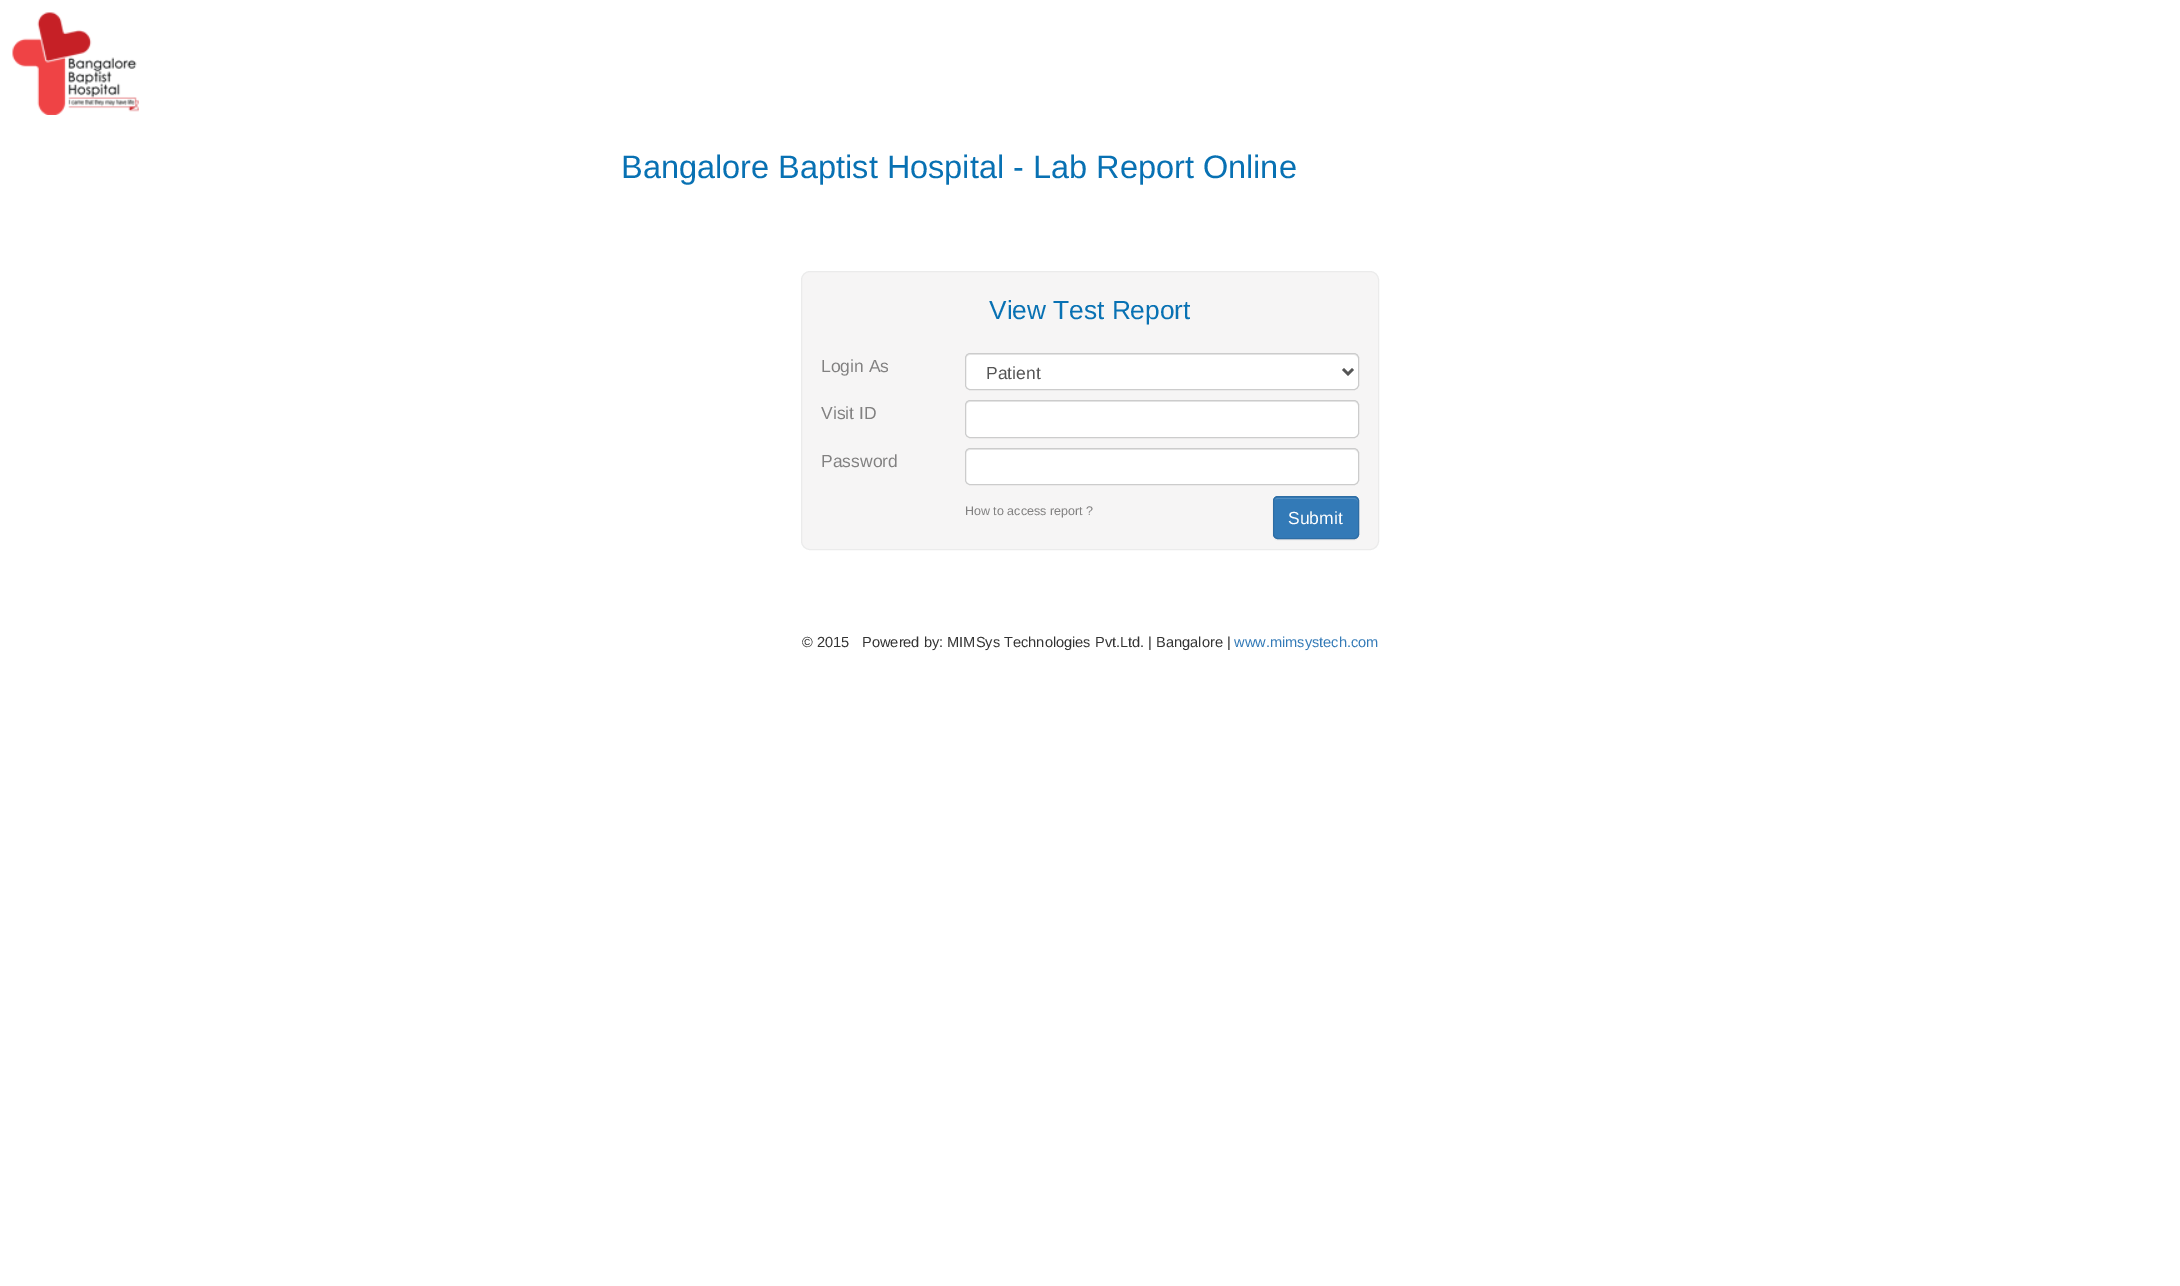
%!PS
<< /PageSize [2180 1286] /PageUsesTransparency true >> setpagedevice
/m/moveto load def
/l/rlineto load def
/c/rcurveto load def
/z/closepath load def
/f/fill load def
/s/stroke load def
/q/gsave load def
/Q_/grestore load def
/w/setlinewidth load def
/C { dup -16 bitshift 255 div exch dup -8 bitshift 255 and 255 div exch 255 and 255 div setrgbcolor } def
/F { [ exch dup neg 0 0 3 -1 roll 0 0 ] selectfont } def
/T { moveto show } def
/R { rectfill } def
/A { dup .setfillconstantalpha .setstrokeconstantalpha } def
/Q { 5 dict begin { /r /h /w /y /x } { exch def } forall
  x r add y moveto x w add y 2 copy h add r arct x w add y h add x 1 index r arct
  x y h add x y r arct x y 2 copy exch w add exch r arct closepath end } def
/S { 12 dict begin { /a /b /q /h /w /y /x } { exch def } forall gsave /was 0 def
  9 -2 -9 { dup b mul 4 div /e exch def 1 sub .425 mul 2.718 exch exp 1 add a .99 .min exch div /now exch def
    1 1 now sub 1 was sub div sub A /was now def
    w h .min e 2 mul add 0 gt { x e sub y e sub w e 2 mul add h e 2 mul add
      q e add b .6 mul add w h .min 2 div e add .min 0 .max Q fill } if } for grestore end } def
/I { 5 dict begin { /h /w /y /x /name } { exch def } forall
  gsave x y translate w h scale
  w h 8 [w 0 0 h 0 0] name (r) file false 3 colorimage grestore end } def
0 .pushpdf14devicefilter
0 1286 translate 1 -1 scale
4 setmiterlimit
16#FFFFFF C
0 0 2180 1286 R
(1.rgb) 12 12 127 103 I
/LiberationSans-Regular 32.5 F
16#0871B3 C
(Bangalore Baptist Hospital - Lab Report Online) 621 178 T
16#F6F5F5 C
801.5 271.5 577 278 8.5 Q q f Q_
16#EBEBEB C
s
/LiberationSans-Regular 26.25 F
16#0871B3 C
(View Test Report) 989 319 T
/LiberationSans-Regular 17.5 F
16#828181 C
(Login As) 821 372 T
16#FFFFFF C
965 353 394 37 5 Q f
16#ECECEC C
970 355 m 384 0 l 2 0 4 2 4 4 c 0 -3 -1 -5 -4 -5 c -384 0 l -3 0 -4 2 -4 5 c 0 -2 2 -4 4 -4 c z f
16#CCCCCC C
965.5 353.5 393 36 4.5 Q s
16#555555 C
2.5 w
1343 369 m 5 5 l 5 -5 l s
(Patient) 986 379 T
16#828181 C
(Visit ID) 821 419 T
16#FFFFFF C
965 400 394 38 5 Q f
16#ECECEC C
970 402 m 384 0 l 2 0 4 2 4 4 c 0 -3 -1 -5 -4 -5 c -384 0 l -3 0 -4 2 -4 5 c 0 -2 2 -4 4 -4 c z f
16#CCCCCC C
1 w
965.5 400.5 393 37 4.5 Q s
16#828181 C
(Password) 821 467 T
16#FFFFFF C
965 448 394 37 5 Q f
16#ECECEC C
970 450 m 384 0 l 2 0 4 2 4 4 c 0 -3 -1 -5 -4 -5 c -384 0 l -3 0 -4 2 -4 5 c 0 -2 2 -4 4 -4 c z f
16#CCCCCC C
965.5 448.5 393 36 4.5 Q s
/LiberationSans-Regular 12.5 F
16#828181 C
(How to access report ?) 965 515 T
16#000000 C
1273 498 86 42 5 .5 .07 S
16#337AB7 C
1273 496 86 43 5 Q f
16#528EC2 C
1278 499 m 76 0 l 2 0 4 1 4 3 c 0 -2 -2 -4 -4 -4 c -76 0 l -2 0 -3 1 -4 2 c 1 -1 2 -1 4 -1 c z f
16#2E6DA4 C
1273.5 496.5 85 42 4.5 Q s
/LiberationSans-Regular 17.5 F
16#FFFFFF C
(Submit) 1288 524 T
/LiberationSans-Regular 14.6 F
16#333333 C
(© 2015) 802 647 T
(Powered by: MIMSys Technologies Pvt.Ltd. | Bangalore |) 862 647 T
16#337AB7 C
(www.mimsystech.com) 1234 647 T
.poppdf14devicefilter showpage
